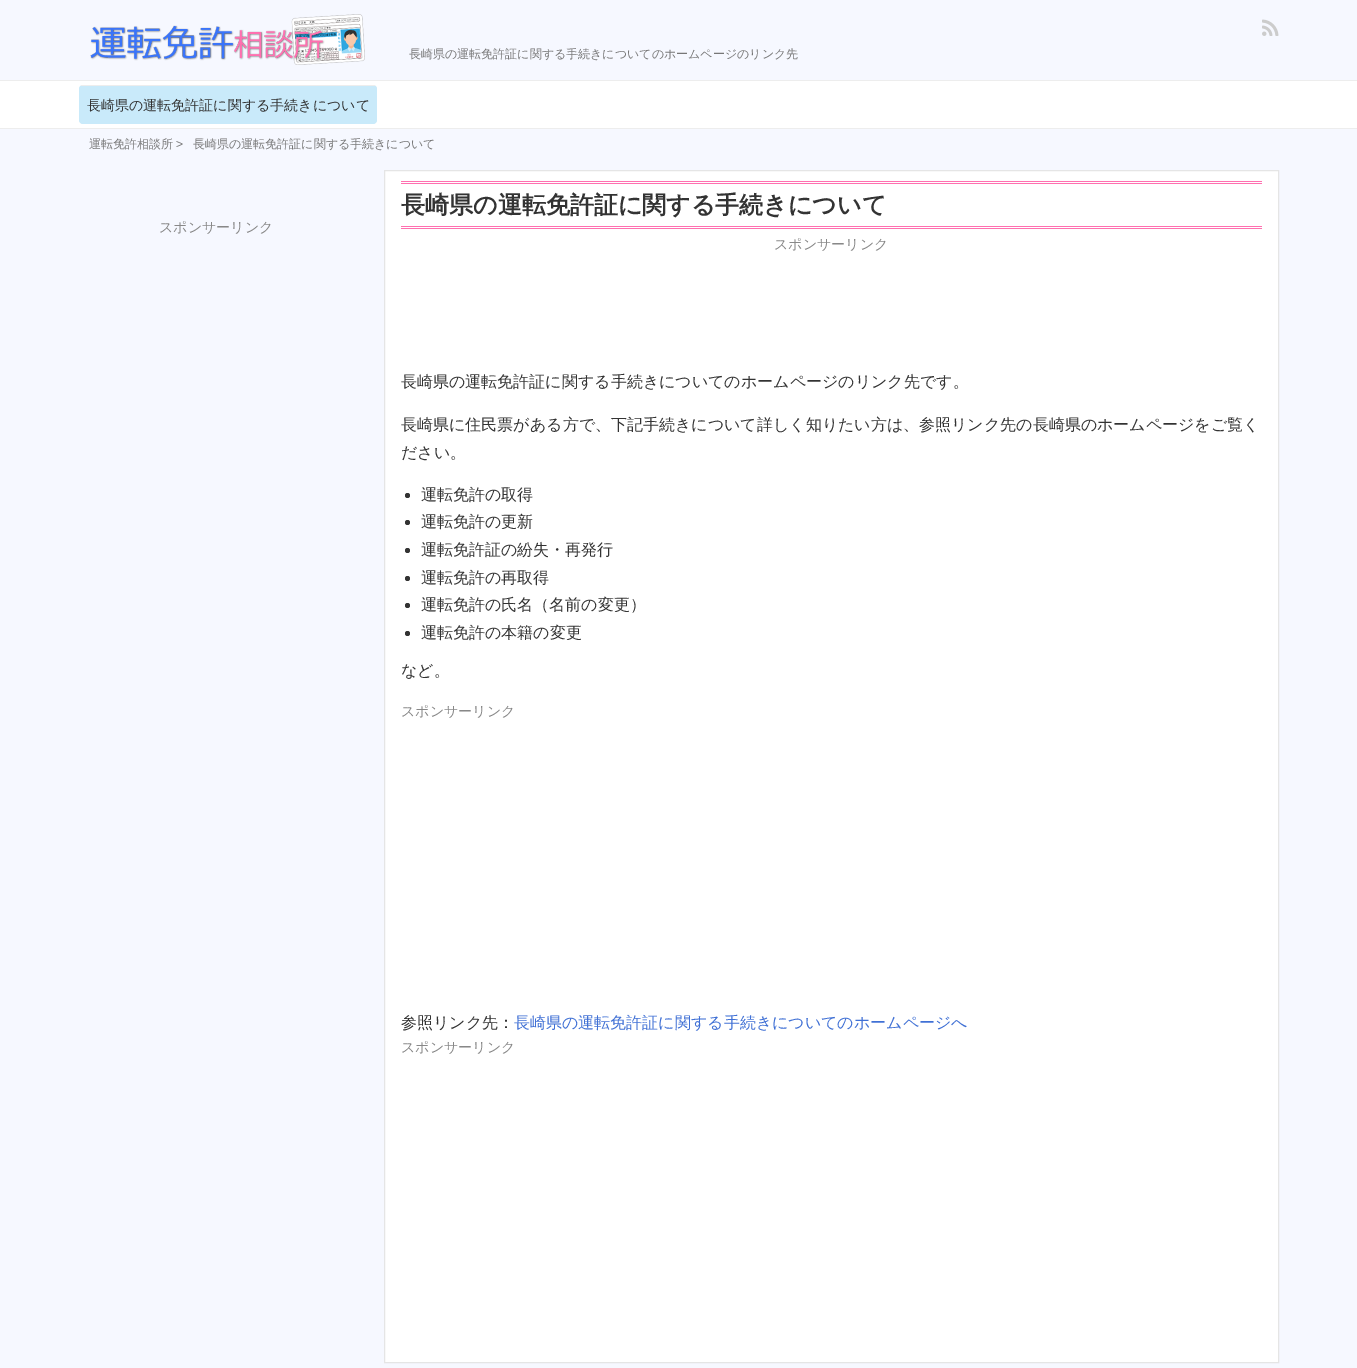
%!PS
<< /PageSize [1357 1368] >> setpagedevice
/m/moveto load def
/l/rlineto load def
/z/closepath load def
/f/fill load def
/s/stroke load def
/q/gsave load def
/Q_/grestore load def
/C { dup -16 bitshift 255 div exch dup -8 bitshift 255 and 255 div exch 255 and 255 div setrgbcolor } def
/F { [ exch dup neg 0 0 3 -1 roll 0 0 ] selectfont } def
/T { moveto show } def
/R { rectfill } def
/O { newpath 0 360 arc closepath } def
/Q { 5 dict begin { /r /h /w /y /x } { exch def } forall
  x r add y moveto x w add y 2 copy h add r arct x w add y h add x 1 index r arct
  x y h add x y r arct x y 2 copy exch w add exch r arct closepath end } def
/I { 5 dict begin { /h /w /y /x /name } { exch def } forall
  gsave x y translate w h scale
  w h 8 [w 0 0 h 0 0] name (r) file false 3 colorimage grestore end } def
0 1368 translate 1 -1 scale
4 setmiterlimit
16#F6F8FF C
0 0 1357 1368 R
16#EDEDED C
0 80 1357 1 R
(1.rgb) 90 14 275 51 I
(2.rgb) 1262 19 17 17 I
/WenQuanYiZenHei-Medium 12 F
16#777777 C
(長崎県の運転免許証に関する手続きについてのホームページのリンク先) 409 58 T
16#FFFFFF C
0 81 1357 47 R
16#EDEDED C
0 128 1357 1 R
16#C9EAFA C
79 85 298 39 4 Q f
16#EDEDED C
81 85 294 1 R
/WenQuanYiZenHei-Medium 14 F
16#333333 C
(長崎県の運転免許証に関する手続きについて) 87 110 T
/WenQuanYiZenHei-Medium 12 F
16#777777 C
(運転免許相談所) 89 148 T
/LiberationSans-Regular 12 F
(>) 176 148 T
/WenQuanYiZenHei-Medium 12 F
(長崎県の運転免許証に関する手続きについて) 193 148 T
/WenQuanYiZenHei-Medium 14 F
16#888888 C
(スポンサーリンク) 159 232 T
16#FFFFFF C
384.5 170.5 m 894 0 l 0 1192 l -894 0 l z q f Q_
16#E5E5E5 C
s
16#FF70B0 C
401 181 861 1 R
401 183 861 1 R
401 226 861 1 R
401 228 861 1 R
/WenQuanYiZenHei-Bold 24 F
16#333333 C
(長崎県の運転免許証に関する手続きについて) 401 213 T
/WenQuanYiZenHei-Medium 14 F
16#888888 C
(スポンサーリンク) 774 249 T
/WenQuanYiZenHei-Medium 16 F
16#333333 C
(長崎県の運転免許証に関する手続きについてのホームページのリンク先です。) 401 387 T
(長崎県に住民票がある方で、下記手続きについて詳しく知りたい方は、参照リンク先の長崎県のホームページをご覧く) 401 430 T
(ださい。) 401 458 T
407.5 495.5 2.5 O f
(運転免許の取得) 421 500 T
407.5 522.5 2.5 O f
(運転免許の更新) 421 527 T
407.5 550.5 2.5 O f
(運転免許証の紛失・再発行) 421 555 T
407.5 578.5 2.5 O f
(運転免許の再取得) 421 583 T
407.5 605.5 2.5 O f
(運転免許の氏名（名前の変更）) 421 610 T
407.5 633.5 2.5 O f
(運転免許の本籍の変更) 421 638 T
(など。) 401 676 T
/WenQuanYiZenHei-Medium 14 F
16#888888 C
(スポンサーリンク) 401 716 T
/WenQuanYiZenHei-Medium 16 F
16#333333 C
(参照リンク先：) 401 1028 T
16#3F70D5 C
(長崎県の運転免許証に関する手続きについてのホームページへ) 514 1028 T
/WenQuanYiZenHei-Medium 14 F
16#888888 C
(スポンサーリンク) 401 1052 T
showpage
